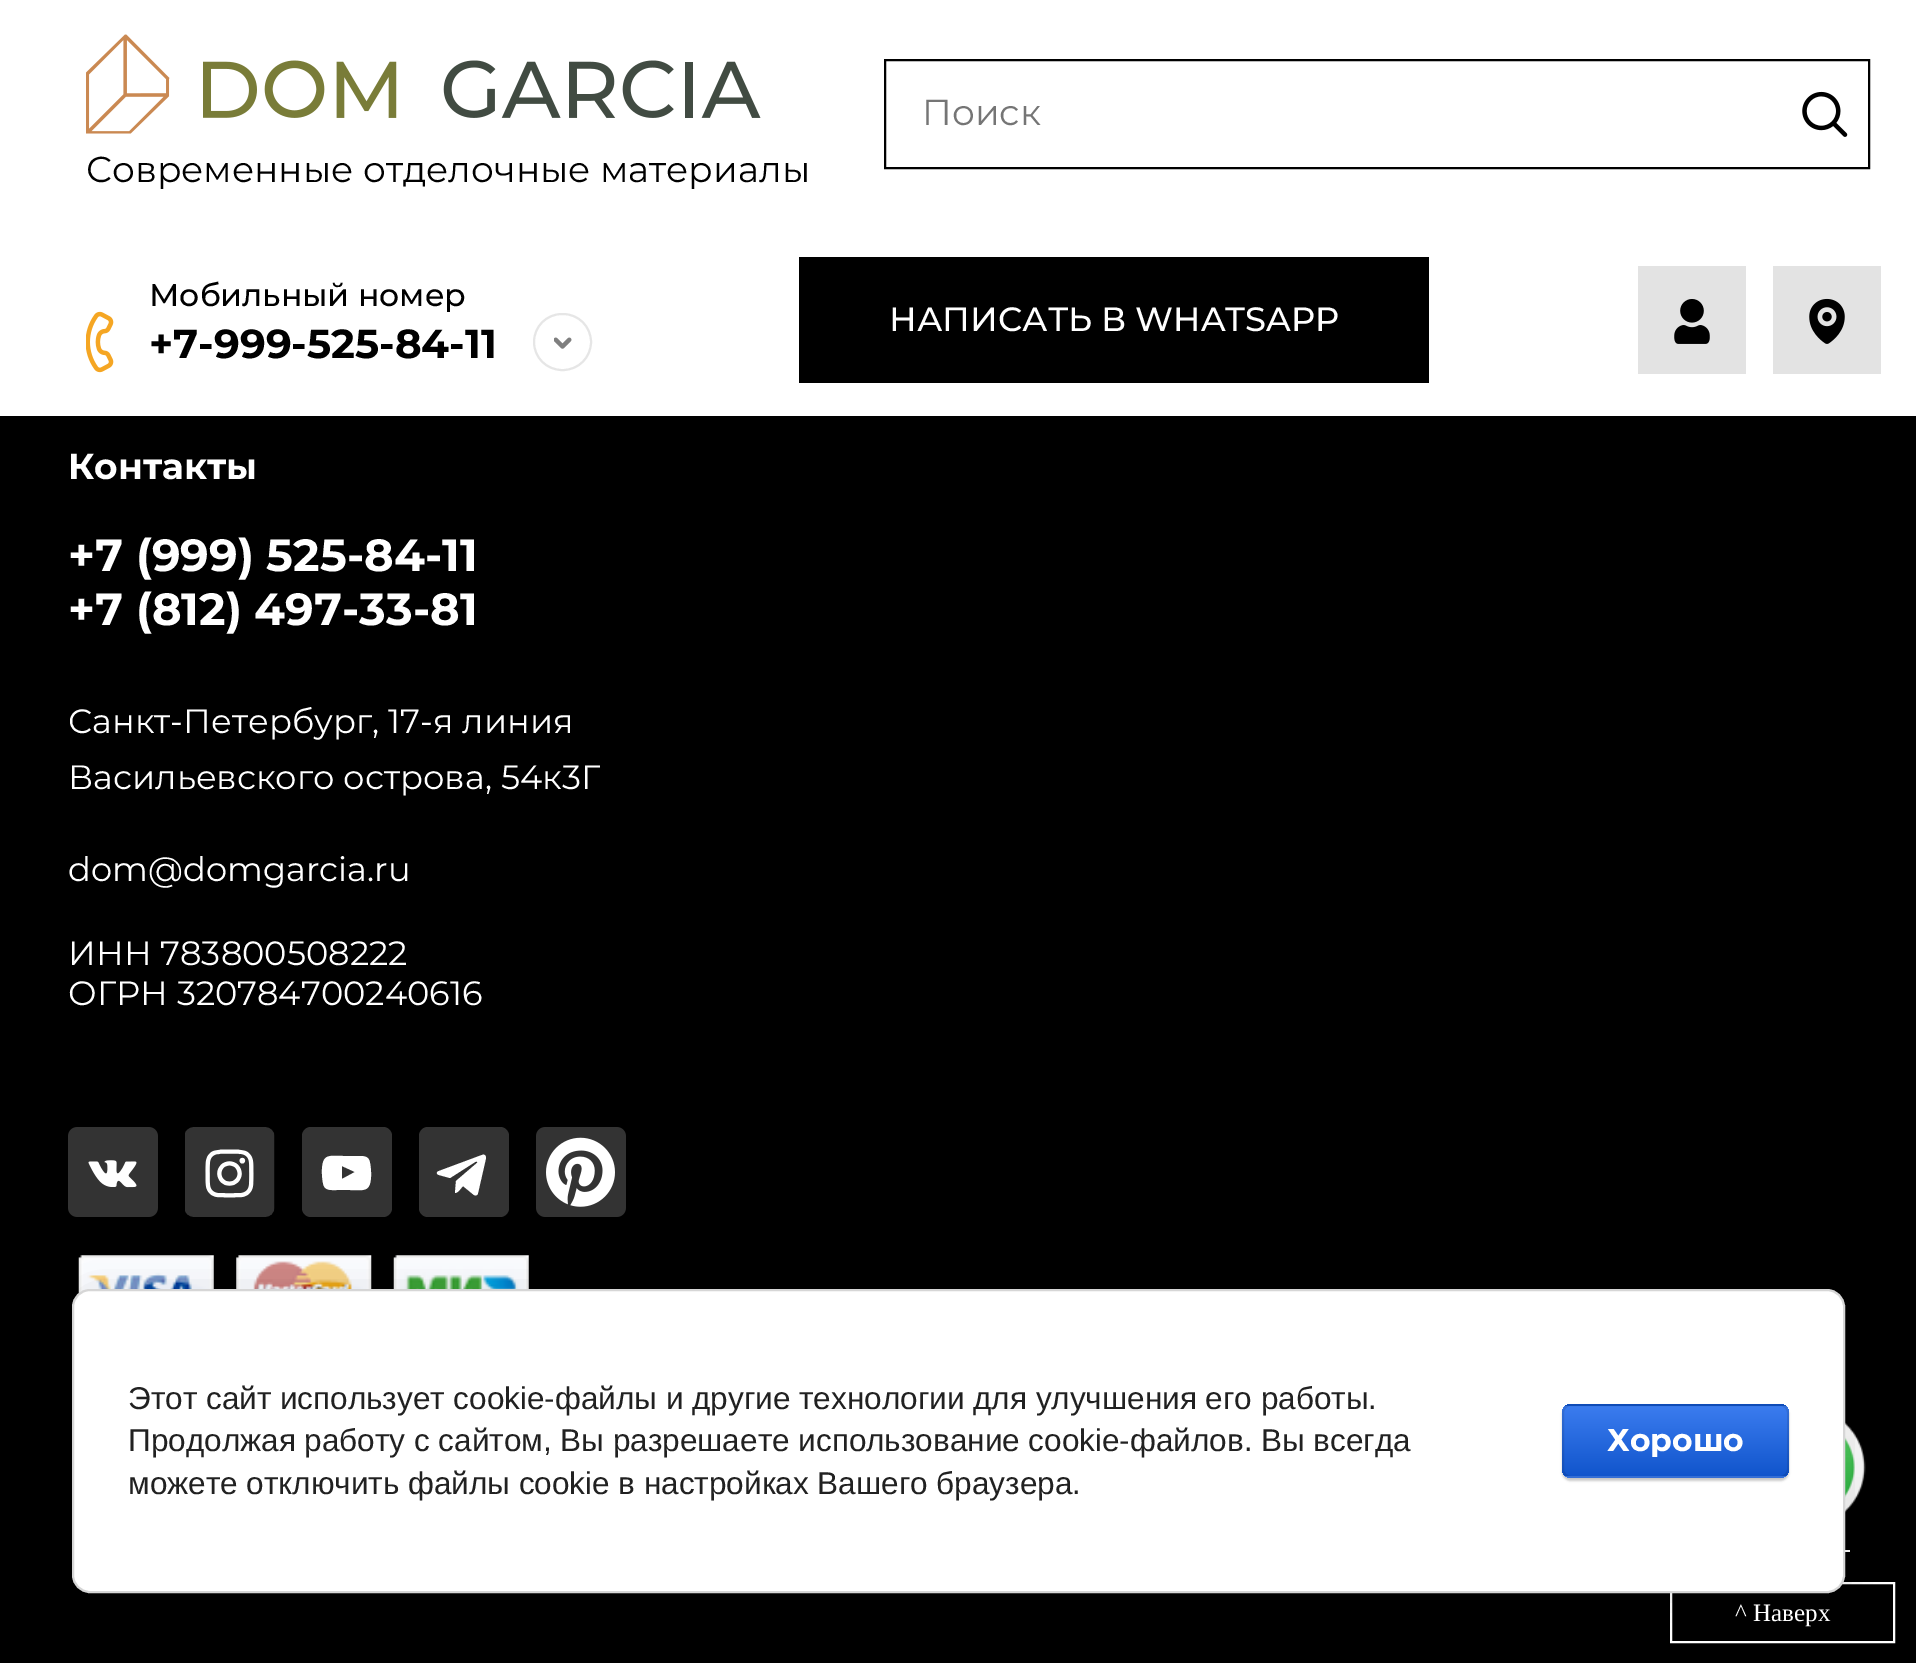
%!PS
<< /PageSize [1916 1663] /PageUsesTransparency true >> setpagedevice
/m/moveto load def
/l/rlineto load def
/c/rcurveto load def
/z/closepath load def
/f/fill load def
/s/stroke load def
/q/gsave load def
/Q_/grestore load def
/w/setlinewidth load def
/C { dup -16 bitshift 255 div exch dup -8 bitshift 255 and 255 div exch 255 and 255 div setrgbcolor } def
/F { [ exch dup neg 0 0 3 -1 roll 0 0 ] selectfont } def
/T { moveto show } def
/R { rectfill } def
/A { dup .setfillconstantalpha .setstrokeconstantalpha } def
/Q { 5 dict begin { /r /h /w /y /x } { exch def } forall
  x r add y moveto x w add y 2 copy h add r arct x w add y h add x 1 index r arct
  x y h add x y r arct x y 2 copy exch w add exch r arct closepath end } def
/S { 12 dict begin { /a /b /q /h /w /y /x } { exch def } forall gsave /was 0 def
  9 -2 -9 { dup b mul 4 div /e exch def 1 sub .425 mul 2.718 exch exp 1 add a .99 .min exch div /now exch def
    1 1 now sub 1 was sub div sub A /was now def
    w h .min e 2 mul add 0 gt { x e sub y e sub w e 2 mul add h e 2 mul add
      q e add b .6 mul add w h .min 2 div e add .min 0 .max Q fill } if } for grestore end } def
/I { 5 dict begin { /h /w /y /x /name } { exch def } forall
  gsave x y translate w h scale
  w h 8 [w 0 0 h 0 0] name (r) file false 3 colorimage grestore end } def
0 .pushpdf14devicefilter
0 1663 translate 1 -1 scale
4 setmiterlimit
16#000000 C
0 0 1916 1663 R
16#FFFFFF C
0 0 1916 416 R
16#000000 C
2 w
885 60 984 108 rectstroke
/Montserrat-Regular 36 F
16#757575 C
(Поиск) 922 125 T
(1.rgb) 1802 91 46 46 I
(2.rgb) 86 34 675 100 I
16#000000 C
(Современные отделочные материалы) 86 182 T
(3.rgb) 86 311 28 62 I
/Montserrat-Medium 31.5 F
(Мобильный номер) 149 306 T
/Montserrat-Bold 40.5 F
(+7-999-525-84-11) 149 358 T
(4.rgb) 554 337 18 12 I
16#E6E6E6 C
534 314 57 56 28 Q s
16#000000 C
799 257 630 126 R
/Montserrat-Medium 33.75 F
16#FFFFFF C
(НАПИСАТЬ В WHATSAPP) 889 331 T
16#E3E3E3 C
1638 266 108 108 R
(5.rgb) 1674 299 36 45 I
1773 266 108 108 R
(6.rgb) 1809 298 36 46 I
/Montserrat-Bold 36 F
16#FFFFFF C
(Контакты) 68 479 T
/Montserrat-Bold 45 F
(+7 \(999\) 525-84-11) 68 571 T
(+7 \(812\) 497-33-81) 68 625 T
/Montserrat-Regular 33.75 F
(Санкт-Петербург, 17-я линия) 68 733 T
(Васильевского острова, 54к3Г) 68 789 T
(dom@domgarcia.ru) 68 881 T
(ИНН 783800508222) 68 965 T
(ОГРН 320784700240616) 68 1005 T
(7.rgb) 68 1127 90 90 I
(8.rgb) 185 1127 90 90 I
16#333333 C
302 1127 90 90 9 Q f
16#FFFFFF C
370 1163 m 1 5 3 23 -4 26 c -4 2 -12 1 -16 1 c -13 0 l -6 0 -13 1 -14 -7 c -1 -5 -3 -23 4 -26 c 4 -2 12 -1 16 -1 c 15 0 l 6 0 11 0 12 7 c z 342 1179 m 13 -7 l -13 -6 l z eofill
16#333333 C
419 1127 90 90 9 Q f
16#FFFFFF C
456 1181 m 21 -18 l 1 -1 0 -2 -2 -1 c -25 16 l -11 -3 l -3 -1 -3 -3 0 -4 c 43 -16 l 2 -1 4 0 4 3 c -8 35 l 0 2 -2 3 -4 2 c -11 -9 l -2 2 -5 7 -8 7 c z eofill
(9.rgb) 536 1127 90 90 I
(10.rgb) 78 1255 136 39 I
(11.rgb) 236 1255 136 34 I
(12.rgb) 393 1255 136 34 I
1845 1550 5 2 R
(13.rgb) 1845 1421 21 96 I
1671 1583 223 59 rectstroke
16#000000 C
77 1294 1773 304 18 20 .14 S
16#FFFFFF C
73 1290 1771 302 17 Q q f Q_
16#D6D6D6 C
s
/LiberationSans-Regular 31.5 F
16#212121 C
(Этот сайт использует cookie-файлы и другие технологии для улучшения его работы.) 128 1409 T
(Продолжая работу с сайтом, Вы разрешаете использование cookie-файлов. Вы всегда) 128 1451 T
(можете отключить файлы cookie в настройках Вашего браузера.) 128 1494 T
16#000000 C
1562 1406 227 75 9 1 .2 S
q
1562 1404 227 74 9 Q clip newpath
q 1562 1404 m 227 0 l 0 2 l -227 0 l z clip newpath
<< /ShadingType 2 /ColorSpace /DeviceRGB /Coords [1675 1337 1675 1406] /Extend [true true] /Function << /FunctionType 2 /Domain [0 1] /C0 [.231 .486 .937] /C1 [.067 .333 .8] /N 1 >> >> shfill Q_
q 1562 1406 m 227 0 l 0 70 l -227 0 l z clip newpath
<< /ShadingType 2 /ColorSpace /DeviceRGB /Coords [1675 1406 1675 1476] /Extend [true true] /Function << /FunctionType 2 /Domain [0 1] /C0 [.231 .486 .937] /C1 [.067 .333 .8] /N 1 >> >> shfill Q_
q 1562 1476 m 227 0 l 0 2 l -227 0 l z clip newpath
<< /ShadingType 2 /ColorSpace /DeviceRGB /Coords [1675 1476 1675 1546] /Extend [true true] /Function << /FunctionType 2 /Domain [0 1] /C0 [.231 .486 .937] /C1 [.067 .333 .8] /N 1 >> >> shfill Q_
Q_
0.1 A
1563 1405 225 72 8 Q s
/Montserrat-Bold 31.5 F
1 A
16#FFFFFF C
(Хорошо) 1607 1451 T
/LiberationSerif-Regular 25 F
(^ Наверх) 1735 1621 T
.poppdf14devicefilter showpage
